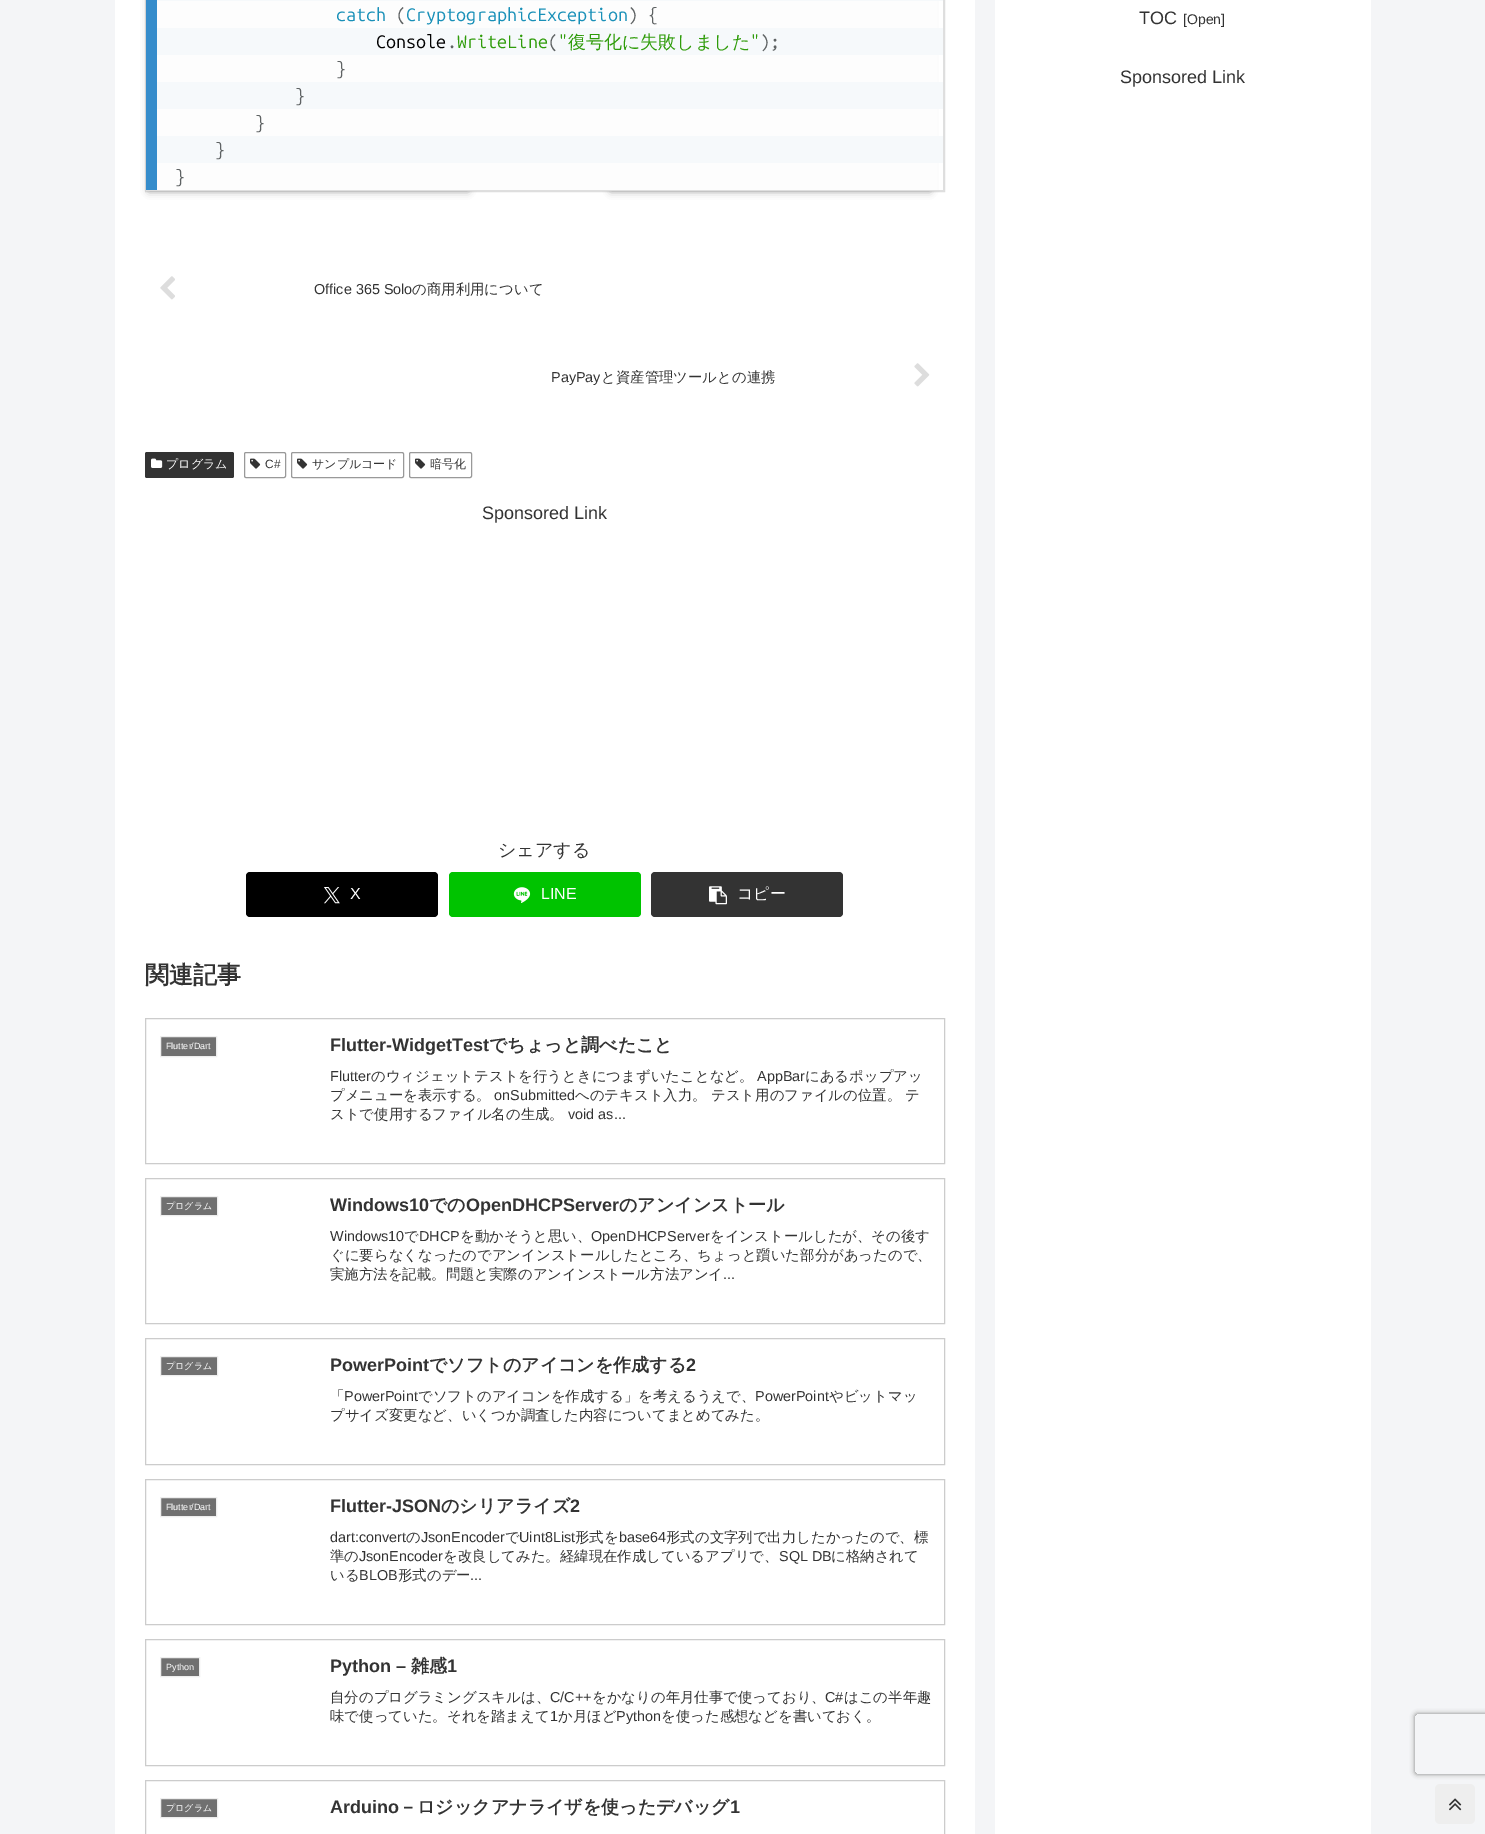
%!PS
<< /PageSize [1485 1834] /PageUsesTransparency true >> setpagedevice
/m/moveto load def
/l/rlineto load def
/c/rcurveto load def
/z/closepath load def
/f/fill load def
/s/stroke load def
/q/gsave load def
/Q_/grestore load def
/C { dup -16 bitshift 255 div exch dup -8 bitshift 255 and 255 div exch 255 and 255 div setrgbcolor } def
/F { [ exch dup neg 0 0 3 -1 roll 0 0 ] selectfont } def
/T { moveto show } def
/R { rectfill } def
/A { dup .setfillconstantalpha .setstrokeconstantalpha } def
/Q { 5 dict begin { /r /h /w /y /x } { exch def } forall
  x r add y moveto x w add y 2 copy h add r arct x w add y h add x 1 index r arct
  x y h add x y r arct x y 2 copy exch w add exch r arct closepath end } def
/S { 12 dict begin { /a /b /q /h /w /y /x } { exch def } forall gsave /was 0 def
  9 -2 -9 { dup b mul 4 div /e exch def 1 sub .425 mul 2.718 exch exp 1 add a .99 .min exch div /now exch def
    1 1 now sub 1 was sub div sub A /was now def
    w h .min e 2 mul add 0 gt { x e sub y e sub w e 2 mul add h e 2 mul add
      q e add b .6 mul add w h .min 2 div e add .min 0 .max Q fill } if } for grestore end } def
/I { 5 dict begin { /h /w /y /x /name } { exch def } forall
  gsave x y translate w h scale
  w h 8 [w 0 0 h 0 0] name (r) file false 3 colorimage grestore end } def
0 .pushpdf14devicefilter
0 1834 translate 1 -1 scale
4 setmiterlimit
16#F4F5F7 C
0 0 1485 1834 R
16#FFFFFF C
115 0 860 1834 R
16#DDDDDD C
145.5 -.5 799 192 rectstroke
16#979797 C
149 -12 319 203 0 4 1 S
611 -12 319 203 0 4 1 S
16#DFDFDF C
146.5 -.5 797 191 rectstroke
16#358CCB C
146 0 11 190 R
16#FDFDFD C
157 1 780 189 R
16#F6F9FB C
157 0 786 1 R
157 28 786 27 R
157 82 786 27 R
157 136 786 27 R
/UbuntuMono-Regular 18 F
16#1990B8 C
(catch) 336 21 T
16#5F6364 C
(\() 396 21 T
16#1990B8 C
(CryptographicException) 406 21 T
16#5F6364 C
(\) {) 628 21 T
16#000000 C
(Console) 376 48 T
16#2F9C0A C
(WriteLine ") 457 48 T
16#5F6364 C
(\() 548 48 T
/WenQuanYiZenHei-Medium 18 F
16#2F9C0A C
(復号化に失敗しました) 568 48 T
/UbuntuMono-Regular 18 F
16#5F6364 C
(\);) 760 48 T
16#2F9C0A C
(") 750 48 T
16#5F6364 C
(.) 447 48 T
(}) 336 75 T
(}) 295 102 T
(}) 255 129 T
(}) 215 156 T
(}) 175 183 T
(1.rgb) 160 276 15 24 I
/LiberationSans-Regular 14.4 F
16#333333 C
(Office 365 Solo) 314 294 T
/WenQuanYiZenHei-Medium 14.4 F
(の商用利用について) 412 294 T
/LiberationSans-Regular 14.4 F
(PayPay) 551 382 T
/WenQuanYiZenHei-Medium 14.4 F
(と資産管理ツールとの連携) 601 382 T
(2.rgb) 914 363 16 24 I
145 452 89 26 2 Q f
(3.rgb) 151 458 12 10 I
/WenQuanYiZenHei-Medium 12 F
16#FFFFFF C
(プログラム) 166 468 T
16#999999 C
244.5 452.5 41 25 1.5 Q s
(4.rgb) 250 458 11 11 I
/LiberationSans-Regular 12 F
16#333333 C
(C#) 265 468 T
16#999999 C
291.5 452.5 112 25 1.5 Q s
(4.rgb) 297 458 11 11 I
/WenQuanYiZenHei-Medium 12 F
16#333333 C
(サンプルコード) 312 468 T
16#999999 C
409.5 452.5 62 25 1.5 Q s
(4.rgb) 415 458 11 11 I
16#333333 C
(暗号化) 430 468 T
/LiberationSans-Regular 18 F
(Sponsored Link) 482 519 T
/WenQuanYiZenHei-Medium 18 F
(シェアする) 498 856 T
16#000000 C
246 872 192 45 4 Q f
(5.rgb) 324 887 16 17 I
/LiberationSans-Regular 16 F
16#FFFFFF C
(X) 350 899 T
16#00C300 C
449 872 192 45 4 Q f
(6.rgb) 513 887 18 16 I
16#FFFFFF C
(LINE) 541 899 T
16#333333 C
651 872 192 45 4 Q f
(7.rgb) 709 886 18 19 I
/WenQuanYiZenHei-Medium 16 F
16#FFFFFF C
(コピー) 737 899 T
/WenQuanYiZenHei-Bold 24 F
16#333333 C
(関連記事) 145 983 T
16#CCCCCC C
145.5 1018.5 799 145 rectstroke
16#707070 C
160.5 1036.5 m 56 0 l 0 20 l -56 0 l z q f Q_
16#EEEEEE C
s
/LiberationSans-Regular 9 F
16#FFFFFF C
(Flutter/Dart) 166 1049 T
/LiberationSans-Bold 18 F
16#333333 C
(Flutter-WidgetTest) 330 1051 T
/WenQuanYiZenHei-Bold 18 F
(でちょっと調べたこと) 489 1051 T
/LiberationSans-Regular 14.4 F
(Flutter) 330 1081 T
/WenQuanYiZenHei-Medium 14.4 F
(のウィジェットテストを行うときにつまずいたことなど。) 371 1081 T
/LiberationSans-Regular 14.4 F
(AppBar) 757 1081 T
/WenQuanYiZenHei-Medium 14.4 F
(にあるポップアッ) 805 1081 T
(プメニューを表示する。) 330 1100 T
/LiberationSans-Regular 14.4 F
(onSubmitted) 494 1100 T
/WenQuanYiZenHei-Medium 14.4 F
(へのテキスト入力。 テスト用のファイルの位置。 テ) 575 1100 T
(ストで使用するファイル名の生成。) 330 1119 T
/LiberationSans-Regular 14.4 F
(void as...) 568 1119 T
16#CCCCCC C
145.5 1178.5 799 145 rectstroke
16#707070 C
160.5 1196.5 m 57 0 l 0 19 l -57 0 l z q f Q_
16#EEEEEE C
s
/WenQuanYiZenHei-Medium 9 F
16#FFFFFF C
(プログラム) 166 1209 T
/LiberationSans-Bold 18 F
16#333333 C
(Windows10) 330 1211 T
/WenQuanYiZenHei-Bold 18 F
(での) 429 1211 T
/LiberationSans-Bold 18 F
(OpenDHCPServer) 466 1211 T
/WenQuanYiZenHei-Bold 18 F
(のアンインストール) 619 1211 T
/LiberationSans-Regular 14.4 F
(Windows10) 330 1241 T
/WenQuanYiZenHei-Medium 14.4 F
(で) 404 1241 T
/LiberationSans-Regular 14.4 F
(DHCP) 419 1241 T
/WenQuanYiZenHei-Medium 14.4 F
(を動かそうと思い、) 460 1241 T
/LiberationSans-Regular 14.4 F
(OpenDHCPServer) 591 1241 T
/WenQuanYiZenHei-Medium 14.4 F
(をインストールしたが、その後す) 710 1241 T
(ぐに要らなくなったのでアンインストールしたところ、ちょっと躓いた部分があったので、) 330 1260 T
(実施方法を記載。問題と実際のアンインストール方法アンイ) 330 1279 T
/LiberationSans-Regular 14.4 F
(...) 723 1279 T
16#CCCCCC C
145.5 1338.5 799 126 rectstroke
16#707070 C
160.5 1356.5 m 57 0 l 0 19 l -57 0 l z q f Q_
16#EEEEEE C
s
/WenQuanYiZenHei-Medium 9 F
16#FFFFFF C
(プログラム) 166 1369 T
/LiberationSans-Bold 18 F
16#333333 C
(PowerPoint) 330 1371 T
/WenQuanYiZenHei-Bold 18 F
(でソフトのアイコンを作成する) 429 1371 T
/LiberationSans-Bold 18 F
(2) 686 1371 T
/WenQuanYiZenHei-Medium 14.4 F
(「) 330 1401 T
/LiberationSans-Regular 14.4 F
(PowerPoint) 344 1401 T
/WenQuanYiZenHei-Medium 14.4 F
(でソフトのアイコンを作成する」を考えるうえで、) 418 1401 T
/LiberationSans-Regular 14.4 F
(PowerPoint) 755 1401 T
/WenQuanYiZenHei-Medium 14.4 F
(やビットマッ) 829 1401 T
(プサイズ変更など、いくつか調査した内容についてまとめてみた。) 330 1420 T
16#CCCCCC C
145.5 1479.5 799 145 rectstroke
16#707070 C
160.5 1497.5 m 56 0 l 0 19 l -56 0 l z q f Q_
16#EEEEEE C
s
/LiberationSans-Regular 9 F
16#FFFFFF C
(Flutter/Dart) 166 1510 T
/LiberationSans-Bold 18 F
16#333333 C
(Flutter-JSON) 330 1512 T
/WenQuanYiZenHei-Bold 18 F
(のシリアライズ) 441 1512 T
/LiberationSans-Bold 18 F
(2) 570 1512 T
/LiberationSans-Regular 14.4 F
(dart:convert) 330 1542 T
/WenQuanYiZenHei-Medium 14.4 F
(の) 406 1542 T
/LiberationSans-Regular 14.4 F
(JsonEncoder) 421 1542 T
/WenQuanYiZenHei-Medium 14.4 F
(で) 505 1542 T
/LiberationSans-Regular 14.4 F
(Uint8List) 519 1542 T
/WenQuanYiZenHei-Medium 14.4 F
(形式を) 575 1542 T
/LiberationSans-Regular 14.4 F
(base64) 619 1542 T
/WenQuanYiZenHei-Medium 14.4 F
(形式の文字列で出力したかったので、標) 666 1542 T
(準の) 330 1561 T
/LiberationSans-Regular 14.4 F
(JsonEncoder) 359 1561 T
/WenQuanYiZenHei-Medium 14.4 F
(を改良してみた。経緯現在作成しているアプリで、) 443 1561 T
/LiberationSans-Regular 14.4 F
(SQL DB) 779 1561 T
/WenQuanYiZenHei-Medium 14.4 F
(に格納されて) 831 1561 T
(いる) 330 1580 T
/LiberationSans-Regular 14.4 F
(BLOB) 359 1580 T
/WenQuanYiZenHei-Medium 14.4 F
(形式のデー) 398 1580 T
/LiberationSans-Regular 14.4 F
(...) 470 1580 T
16#CCCCCC C
145.5 1639.5 799 126 rectstroke
16#707070 C
160.5 1657.5 m 39 0 l 0 19 l -39 0 l z q f Q_
16#EEEEEE C
s
/LiberationSans-Regular 9 F
16#FFFFFF C
(Python) 166 1670 T
/LiberationSans-Bold 18 F
16#333333 C
(Python –) 330 1672 T
/WenQuanYiZenHei-Bold 18 F
(雑感) 411 1672 T
/LiberationSans-Bold 18 F
(1) 447 1672 T
/WenQuanYiZenHei-Medium 14.4 F
(自分のプログラミングスキルは、) 330 1702 T
/LiberationSans-Regular 14.4 F
(C/C++) 550 1702 T
/WenQuanYiZenHei-Medium 14.4 F
(をかなりの年月仕事で使っており、) 592 1702 T
/LiberationSans-Regular 14.4 F
(C#) 825 1702 T
/WenQuanYiZenHei-Medium 14.4 F
(はこの半年趣) 844 1702 T
(味で使っていた。それを踏まえて) 330 1721 T
/LiberationSans-Regular 14.4 F
(1) 550 1721 T
/WenQuanYiZenHei-Medium 14.4 F
(か月ほど) 558 1721 T
/LiberationSans-Regular 14.4 F
(Python) 616 1721 T
/WenQuanYiZenHei-Medium 14.4 F
(を使った感想などを書いておく。) 661 1721 T
16#CCCCCC C
145.5 1780.5 799 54 rectstroke
16#707070 C
160.5 1798.5 m 57 0 l 0 19 l -57 0 l z q f Q_
16#EEEEEE C
s
/WenQuanYiZenHei-Medium 9 F
16#FFFFFF C
(プログラム) 166 1811 T
/LiberationSans-Bold 18 F
16#333333 C
(Arduino) 330 1813 T
/WenQuanYiZenHei-Bold 18 F
(－ロジックアナライザを使ったデバッグ) 399 1813 T
/LiberationSans-Bold 18 F
(1) 730 1813 T
16#FFFFFF C
995 0 376 1834 R
/LiberationSans-Regular 18 F
16#333333 C
(TOC) 1139 24 T
/LiberationSans-Regular 14 F
([Open]) 1183 24 T
/LiberationSans-Regular 18 F
(Sponsored Link) 1120 83 T
16#EEEEEE C
1435 1784 40 40 5 Q f
(8.rgb) 1449 1798 13 13 I
q
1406 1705 m 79 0 l 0 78 l -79 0 l z 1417 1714 m 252 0 l 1 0 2 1 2 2 c 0 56 l 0 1 -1 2 -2 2 c -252 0 l -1 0 -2 -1 -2 -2 c 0 -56 l 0 -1 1 -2 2 -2 c z eoclip newpath
16#808080 C
1415 1714 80 60 2 2.5 1 S
Q_
.poppdf14devicefilter showpage
